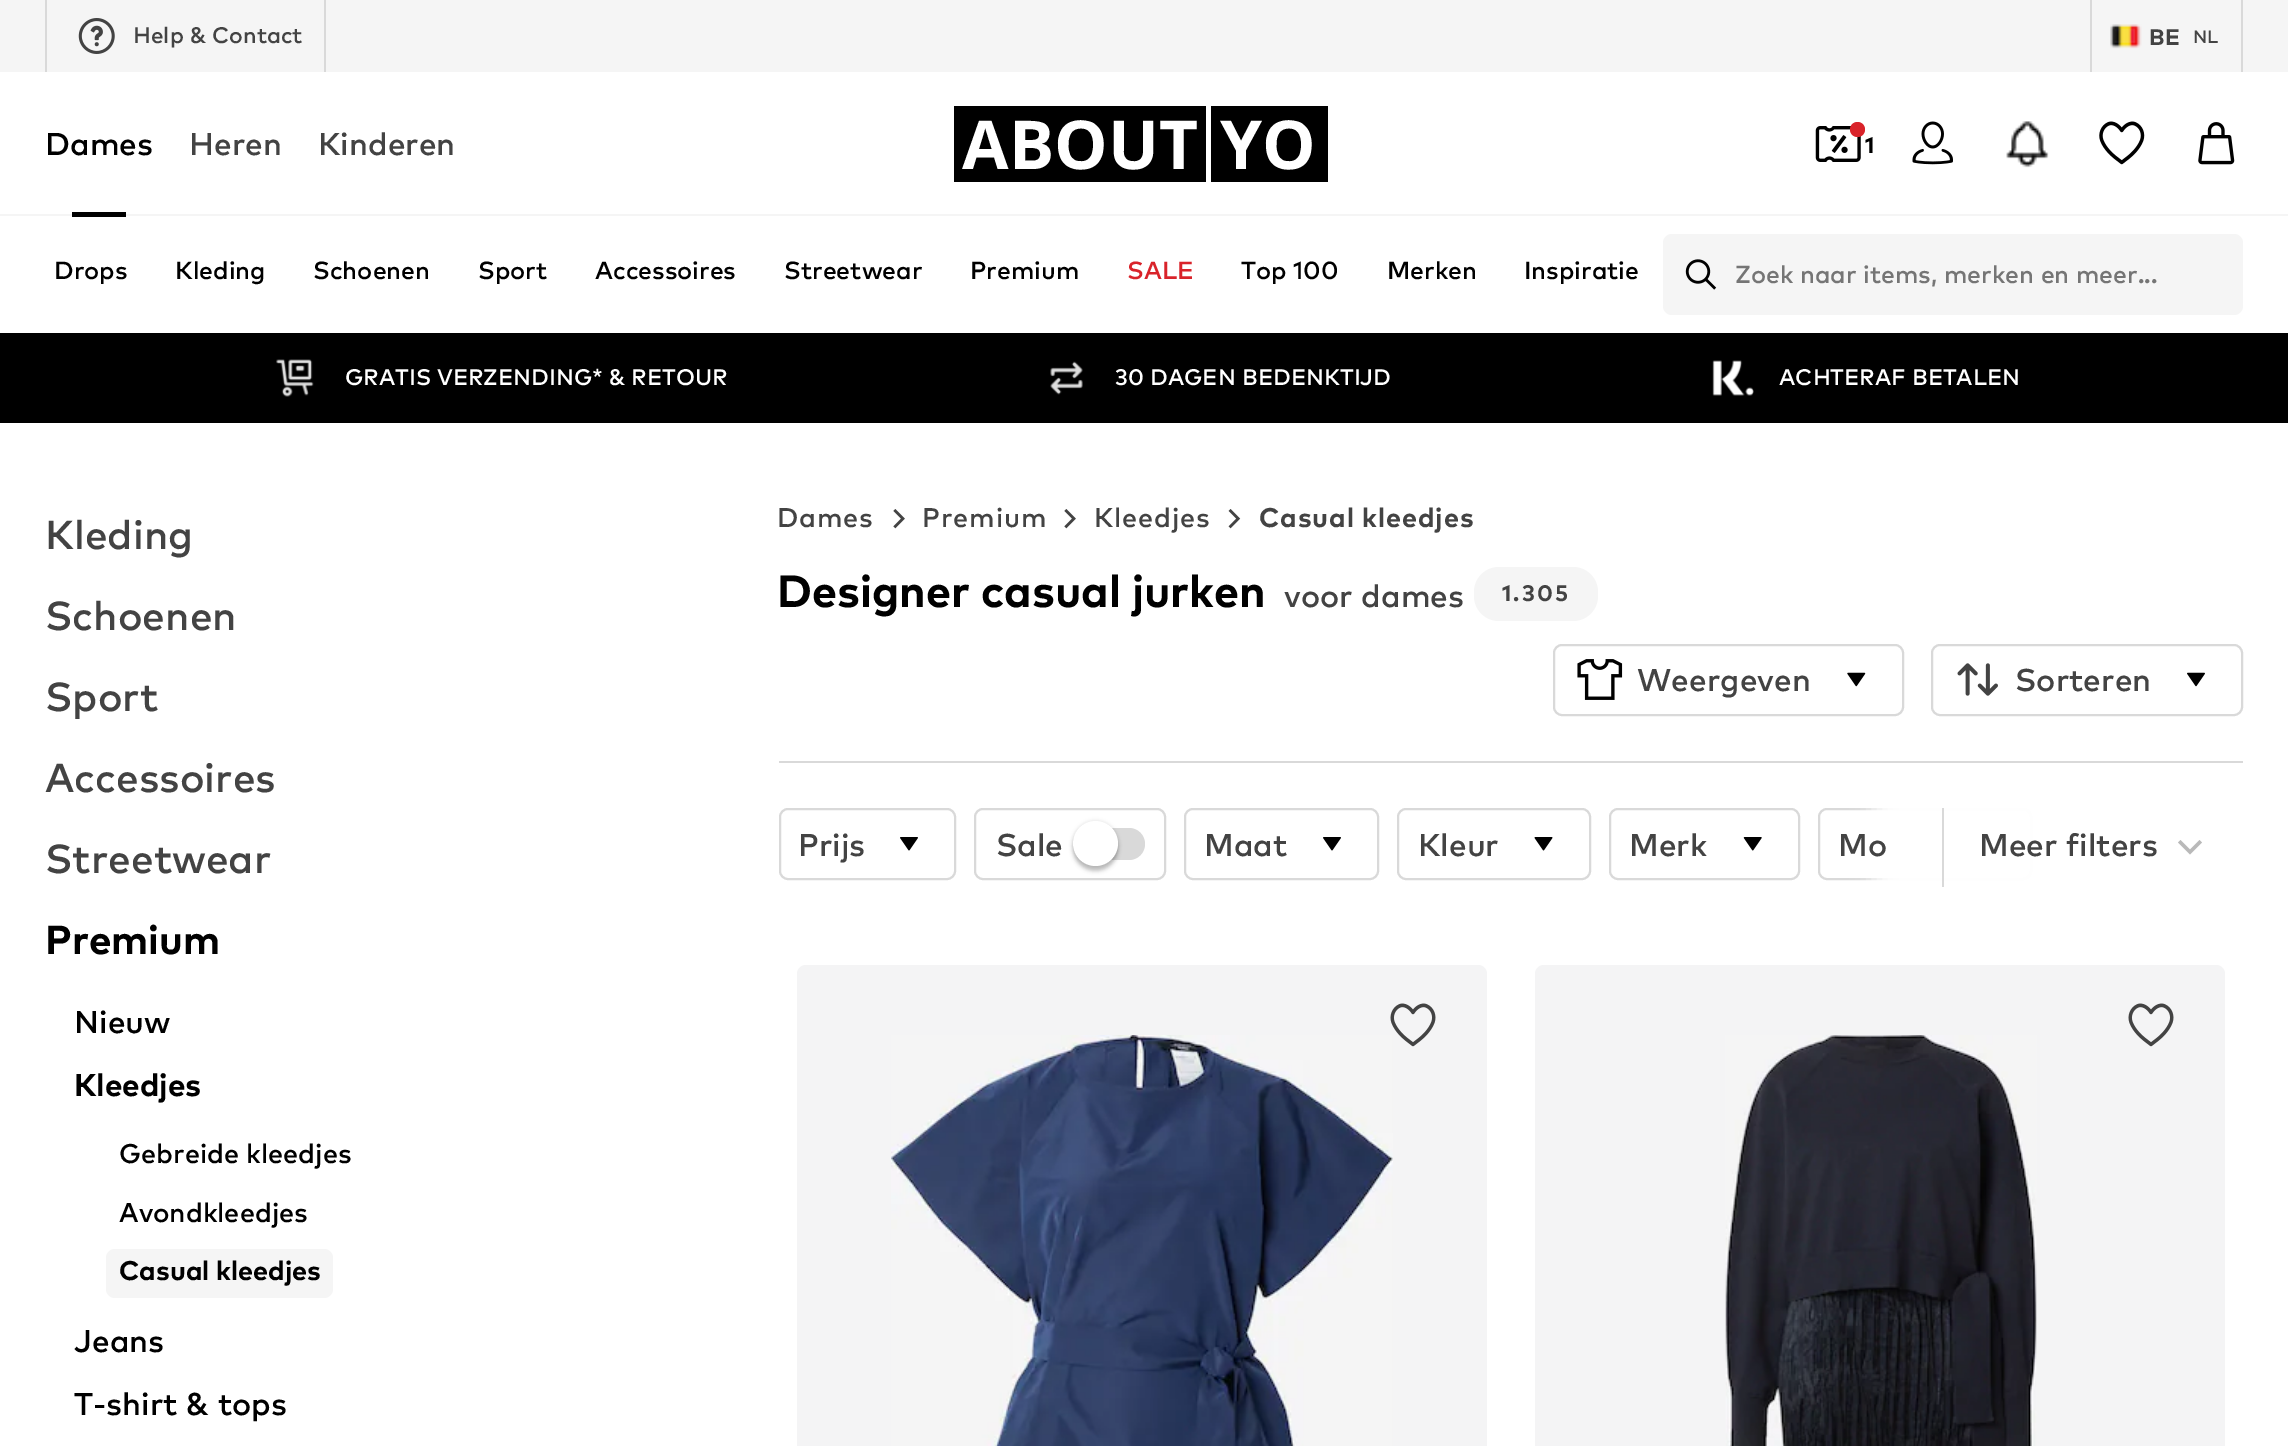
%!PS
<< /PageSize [2288 1446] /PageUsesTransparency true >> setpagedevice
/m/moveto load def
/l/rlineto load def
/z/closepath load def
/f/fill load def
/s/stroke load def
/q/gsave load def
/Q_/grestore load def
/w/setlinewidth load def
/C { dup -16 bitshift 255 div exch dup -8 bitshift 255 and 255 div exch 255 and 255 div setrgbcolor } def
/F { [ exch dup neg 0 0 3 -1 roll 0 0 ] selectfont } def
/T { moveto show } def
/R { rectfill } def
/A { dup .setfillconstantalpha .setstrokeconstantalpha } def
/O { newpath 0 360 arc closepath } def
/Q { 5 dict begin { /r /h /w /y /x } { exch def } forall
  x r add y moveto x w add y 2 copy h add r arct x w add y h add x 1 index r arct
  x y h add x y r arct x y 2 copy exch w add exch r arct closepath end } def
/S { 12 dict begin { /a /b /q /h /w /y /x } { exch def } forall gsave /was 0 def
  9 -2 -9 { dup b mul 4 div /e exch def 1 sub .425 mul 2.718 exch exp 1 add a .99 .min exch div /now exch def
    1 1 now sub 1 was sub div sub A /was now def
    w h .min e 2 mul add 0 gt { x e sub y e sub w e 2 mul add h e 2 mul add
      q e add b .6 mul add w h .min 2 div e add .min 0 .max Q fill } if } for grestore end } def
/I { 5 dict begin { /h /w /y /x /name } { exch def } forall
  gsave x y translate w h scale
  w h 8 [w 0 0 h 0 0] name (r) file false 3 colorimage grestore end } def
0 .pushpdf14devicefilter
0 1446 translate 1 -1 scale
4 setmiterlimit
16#FFFFFF C
0 0 2288 1446 R
16#F5F5F5 C
0 0 2288 72 R
16#D9D9D9 C
324 0 2 72 R
45 0 2 72 R
(1.rgb) 78 18 37 36 I
/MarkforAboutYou-Medium 22.5 F
16#434343 C
(Help & Contact) 133 43 T
16#D9D9D9 C
2241 0 2 72 R
2090 0 2 72 R
(2.rgb) 2110 24 32 25 I
/MarkforAboutYou-Bold 22.5 F
16#434343 C
(BE) 2149 45 T
/MarkforAboutYou-Medium 18 F
(NL) 2193 43 T
16#F5F5F5 C
0 214 2288 2 R
/MarkforAboutYou-Medium 31.5 F
16#000000 C
(Dames) 45 155 T
72 212 54 5 R
16#434343 C
(Heren) 189 155 T
(Kinderen) 318 155 T
16#000000 C
954 106 252 76 R
/OpenSans-Bold 67.5 F
16#FFFFFF C
(ABOUT) 962 169 T
16#000000 C
1211 106 117 76 R
16#FFFFFF C
(YO) 1220 169 T
(3.rgb) 1815 126 46 36 I
16#D9232A C
1857.5 129.5 7.5 O f
/MarkforAboutYou-Bold 22.5 F
16#000000 C
(1) 1865 153 T
(4.rgb) 1912 121 41 44 I
(5.rgb) 2006 121 43 47 I
(6.rgb) 2099 121 46 44 I
(7.rgb) 2198 122 37 43 I
/MarkforAboutYou-Medium 24.75 F
(Drops) 54 279 T
(Kleding) 175 279 T
(Schoenen) 313 279 T
(Sport) 478 279 T
(Accessoires) 595 279 T
(Streetwear) 784 279 T
(Premium) 970 279 T
16#D9232A C
(SALE) 1127 279 T
16#000000 C
(Top 100) 1241 279 T
(Merken) 1387 279 T
(Inspiratie) 1524 279 T
16#F5F5F5 C
1663 234 580 81 9 Q f
(8.rgb) 1685 259 32 31 I
16#757575 C
(Zoek naar items, merken en meer...) 1735 283 T
16#000000 C
0 333 2288 90 R
(9.rgb) 276 359 38 38 I
/MarkforAboutYou-Medium 22.5 F
16#FFFFFF C
(GRATIS VERZENDING* & RETOUR) 345 385 T
(10.rgb) 1050 361 33 34 I
(30 DAGEN BEDENKTIJD) 1115 385 T
(11.rgb) 1712 360 42 36 I
(ACHTERAF BETALEN) 1779 385 T
/MarkforAboutYou-Medium 40.5 F
16#434343 C
(Kleding) 45 549 T
(Schoenen) 45 630 T
(Sport) 45 711 T
(Accessoires) 45 792 T
(Streetwear) 45 873 T
/MarkforAboutYou-Bold 40.5 F
16#000000 C
(Premium) 45 954 T
/MarkforAboutYou-Medium 31.5 F
(Nieuw) 74 1033 T
/MarkforAboutYou-Bold 31.5 F
(Kleedjes) 74 1096 T
/MarkforAboutYou-Medium 27 F
(Gebreide kleedjes) 119 1163 T
(Avondkleedjes) 119 1222 T
16#F5F5F5 C
106 1249 227 49 9 Q f
/MarkforAboutYou-Bold 27 F
16#000000 C
(Casual kleedjes) 119 1280 T
/MarkforAboutYou-Medium 31.5 F
(Jeans) 74 1352 T
(T-shirt & tops) 74 1415 T
/MarkforAboutYou-Medium 27 F
16#434343 C
777 527 m .9 0 (Dames) ashow
(12.rgb) 893 509 12 20 I
922 527 m .9 0 (Premium) ashow
(12.rgb) 1064 509 12 20 I
1094 527 m .9 0 (Kleedjes) ashow
(13.rgb) 1228 509 13 20 I
/MarkforAboutYou-Bold 27 F
1259 527 m .9 0 (Casual kleedjes) ashow
16#D9D9D9 C
2 w
1819 809 212 70 8 Q s
q
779 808 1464 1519 rectclip
16#FFFFFF C
1874 779 347 130 0 11 1 S
Q_
779 761 1464 2 R
/MarkforAboutYou-Bold 45 F
16#000000 C
(Designer casual jurken) 777 607 T
/MarkforAboutYou-Medium 31.5 F
16#434343 C
(voor dames) 1284 607 T
16#F5F5F5 C
1474 567 124 54 25 Q f
/MarkforAboutYou-Bold 22.5 F
16#434343 C
1502 601 m 2.25 0 (1.305) ashow
16#D9D9D9 C
1554 645 349 70 8 Q s
(14.rgb) 1577 659 46 41 I
/MarkforAboutYou-Medium 31.5 F
16#434343 C
(Weergeven) 1637 691 T
(15.rgb) 1847 672 19 15 I
16#D9D9D9 C
1932 645 310 70 8 Q s
(16.rgb) 1957 663 41 33 I
16#434343 C
(Sorteren) 2015 691 T
(17.rgb) 2187 672 18 15 I
16#D9D9D9 C
780 809 175 70 8 Q s
16#434343 C
(Prijs) 798 856 T
(18.rgb) 900 837 18 14 I
16#D9D9D9 C
975 809 190 70 8 Q s
16#434343 C
(Sale) 996 856 T
16#D9D9D9 C
1073 828 72 32 16 Q f
16#000000 C
1073 821 45 45 22.5 2 .12 S
1073 826 45 45 22.5 2 .24 S
16#FFFFFF C
1095.5 843.5 22.5 O f
16#D9D9D9 C
1185 809 193 70 8 Q s
16#434343 C
(Maat) 1204 856 T
(18.rgb) 1323 837 18 14 I
16#D9D9D9 C
1398 809 192 70 8 Q s
16#434343 C
(Kleur) 1418 856 T
(19.rgb) 1534 837 19 14 I
16#D9D9D9 C
1610 809 189 70 8 Q s
16#434343 C
(Merk) 1629 856 T
(20.rgb) 1743 837 19 14 I
(Mo) 1838 856 T
16#D9D9D9 C
1942 808 2 79 R
16#434343 C
(Meer filters) 1979 856 T
16#B9B9B9 C
2190 854.5 m -12 -12 l 2.5 -2.5 l 9.5 9.5 l 9.5 -9.5 l 2.5 2.5 l -9.5 9.5 l z eofill
16#F4F4F5 C
797 965 690 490 9 Q f
(21.rgb) 891 1035 502 411 I
(22.rgb) 1390 1003 46 44 I
1535 965 690 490 9 Q f
(23.rgb) 1725 1035 312 411 I
(24.rgb) 2128 1003 46 44 I
.poppdf14devicefilter showpage
